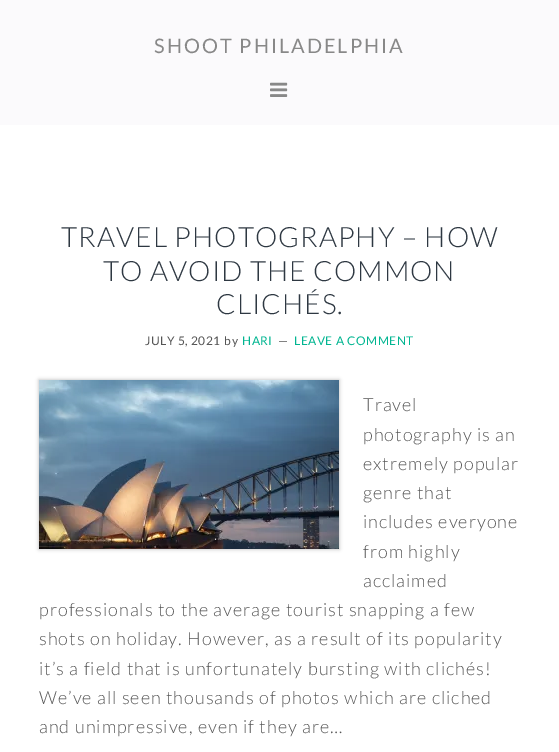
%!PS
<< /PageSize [559 752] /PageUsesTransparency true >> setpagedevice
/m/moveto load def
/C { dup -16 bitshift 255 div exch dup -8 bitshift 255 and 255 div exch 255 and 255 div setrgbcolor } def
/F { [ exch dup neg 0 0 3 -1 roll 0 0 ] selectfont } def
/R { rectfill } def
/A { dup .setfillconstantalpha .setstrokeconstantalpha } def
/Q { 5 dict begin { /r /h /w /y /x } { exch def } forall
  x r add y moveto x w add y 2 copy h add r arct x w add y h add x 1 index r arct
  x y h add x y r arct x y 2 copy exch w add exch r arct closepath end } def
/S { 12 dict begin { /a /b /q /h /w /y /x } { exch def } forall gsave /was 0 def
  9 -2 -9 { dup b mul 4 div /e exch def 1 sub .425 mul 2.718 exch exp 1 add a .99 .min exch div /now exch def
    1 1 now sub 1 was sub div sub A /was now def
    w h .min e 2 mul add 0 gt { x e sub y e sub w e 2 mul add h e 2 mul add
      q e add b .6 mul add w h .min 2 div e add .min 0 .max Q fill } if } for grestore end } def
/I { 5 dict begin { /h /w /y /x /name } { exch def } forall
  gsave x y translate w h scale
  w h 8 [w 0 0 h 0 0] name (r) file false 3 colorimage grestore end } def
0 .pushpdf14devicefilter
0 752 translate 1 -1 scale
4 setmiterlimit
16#FFFFFF C
0 0 559 752 R
16#FBFAFC C
0 0 559 125 R
/Lato-Regular 20 F
16#888888 C
154 53 m 2 0 (SHOOT PHILADELPHIA) ashow
(1.rgb) 270 82 18 15 I
/Lato-Light 28 F
16#2E3842 C
61 247 m 1 0 (TRAVEL PHOTOGRAPHY – HOW) ashow
103 281 m 1 0 (TO AVOID THE COMMON) ashow
216 314 m 1 0 (CLICHÉS.) ashow
/Lato-Regular 12 F
16#555555 C
145 345 m .5 0 (JULY 5, 2021) ashow
224 345 m 1 0 (by) ashow
16#01B591 C
242 345 m .5 0 (HARI) ashow
16#555555 C
278 345 m .5 0 (—) ashow
16#01B591 C
294 345 m .5 0 (LEAVE A COMMENT) ashow
16#000000 C
39 380 300 169 0 2 .3 S
(2.rgb) 39 380 300 169 I
/Lato-Light 18 F
16#555555 C
363 411 m 1 0 (Travel) ashow
363 441 m 1 0 (photography is an) ashow
363 470 m 1 0 (extremely popular) ashow
363 499 m 1 0 (genre that) ashow
363 528 m 1 0 (includes everyone) ashow
363 558 m 1 0 (from highly) ashow
363 587 m 1 0 (acclaimed) ashow
39 616 m 1 0 (professionals to the average tourist snapping a few) ashow
39 645 m 1 0 (shots on holiday. However, as a result of its popularity) ashow
39 675 m 1 0 (it’s a field that is unfortunately bursting with clichés!) ashow
39 704 m 1 0 (We’ve all seen thousands of photos which are cliched) ashow
39 733 m 1 0 (and unimpressive, even if they are…) ashow
.poppdf14devicefilter showpage
